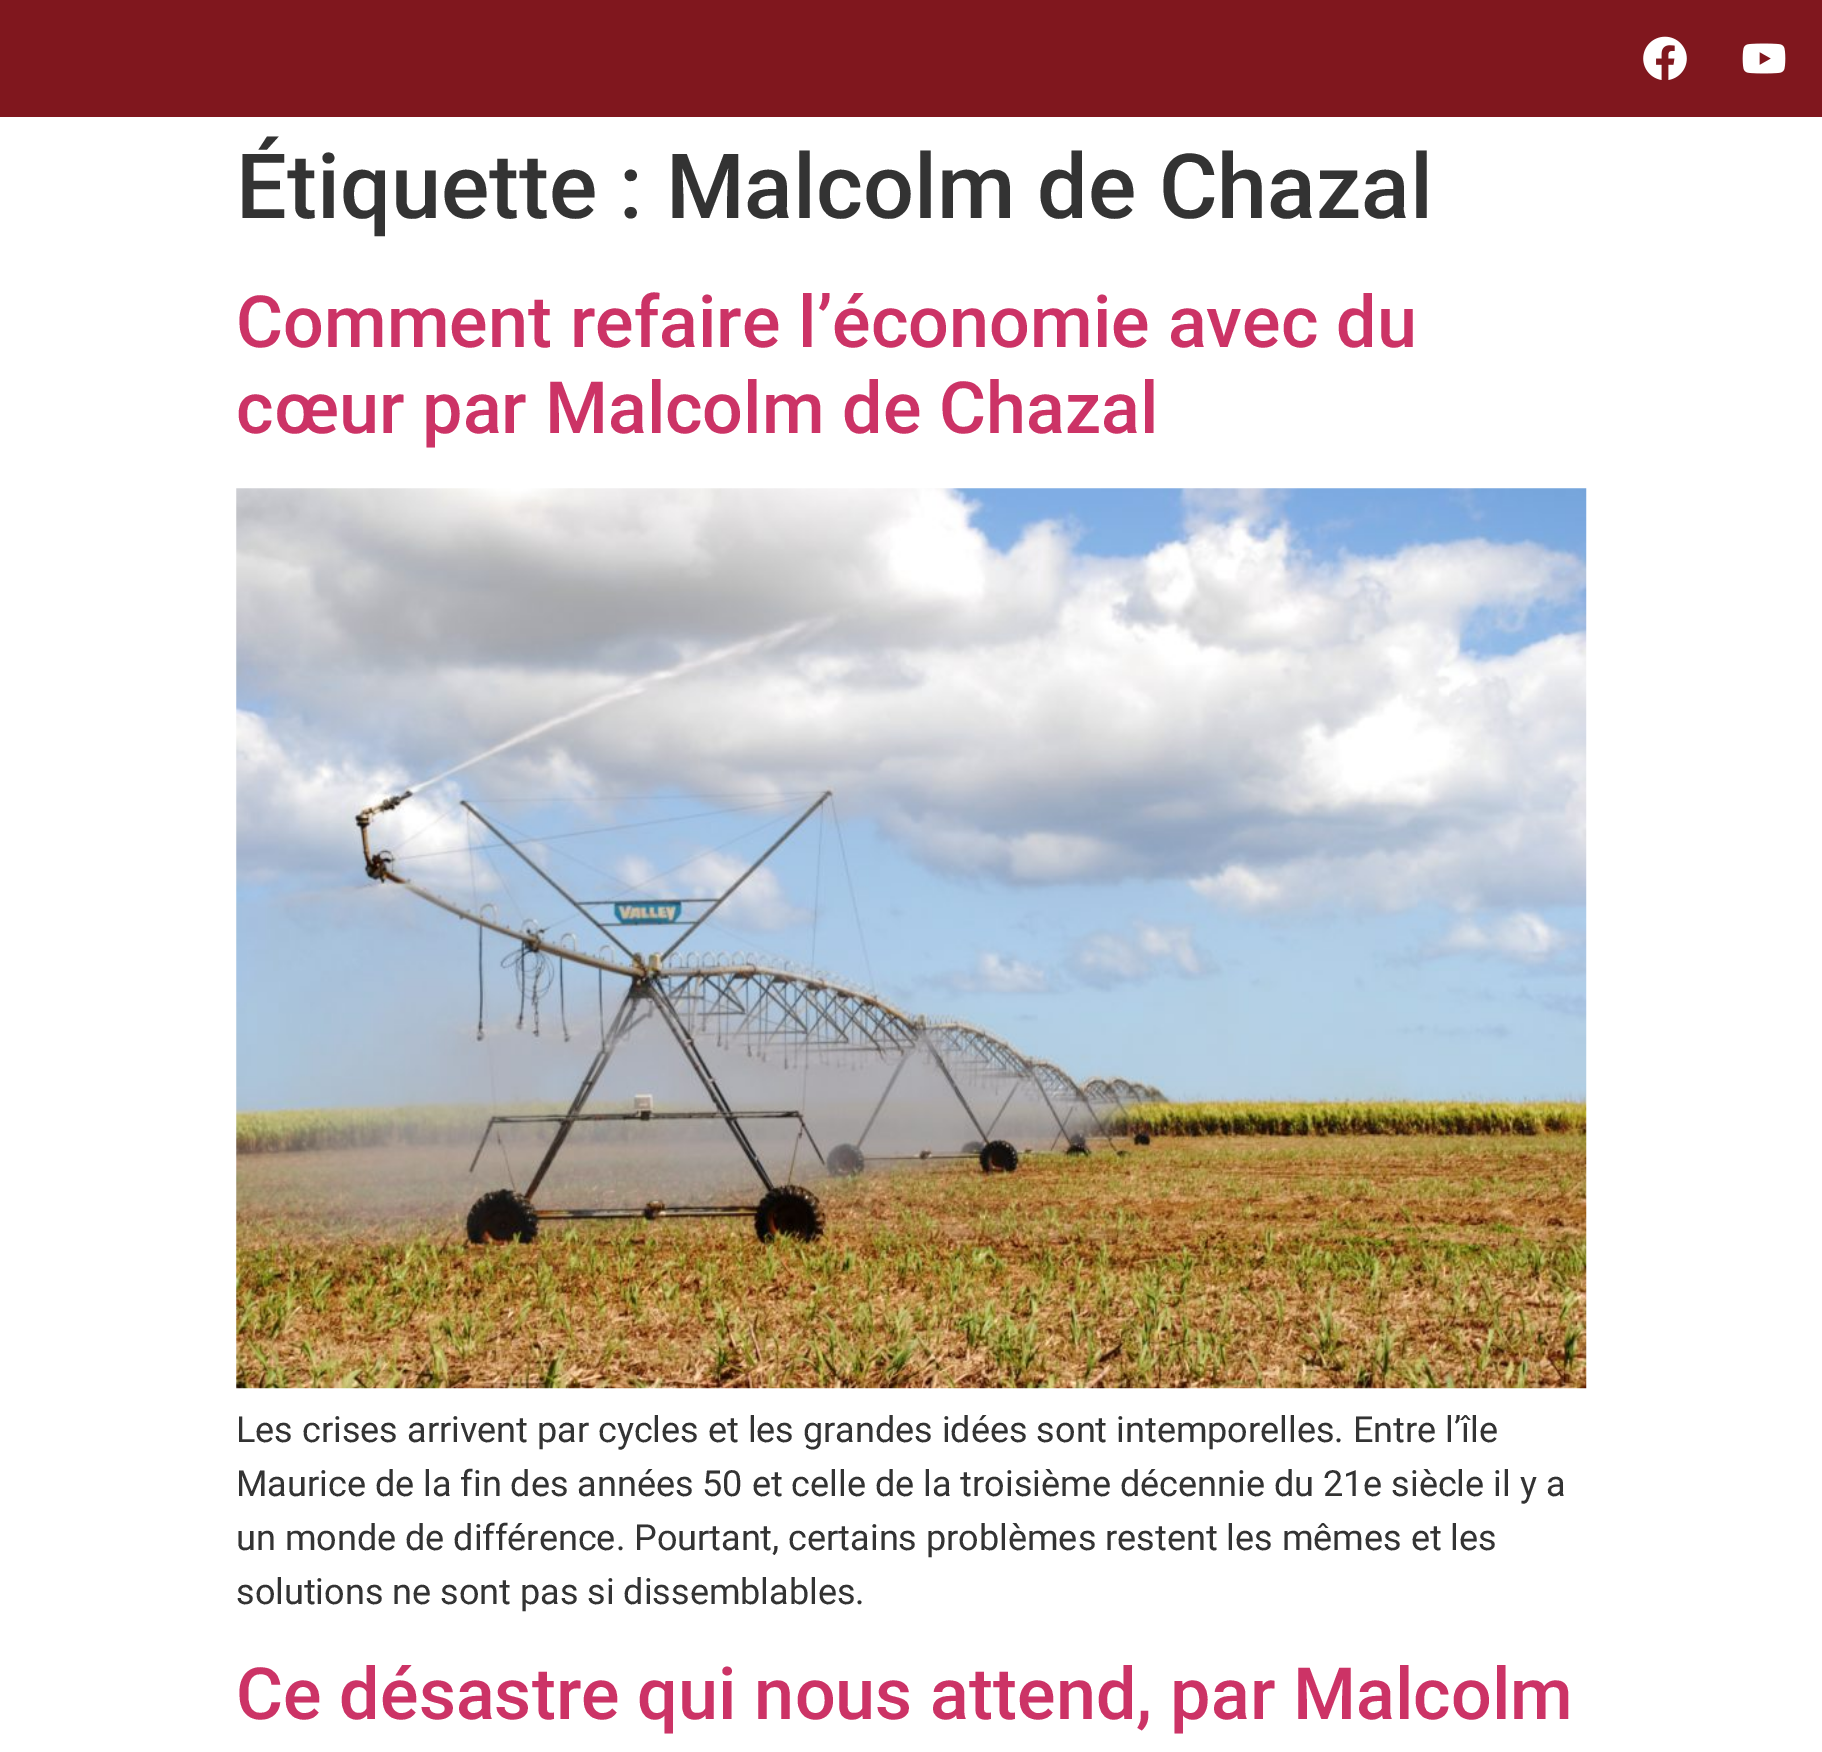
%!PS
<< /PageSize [1822 1752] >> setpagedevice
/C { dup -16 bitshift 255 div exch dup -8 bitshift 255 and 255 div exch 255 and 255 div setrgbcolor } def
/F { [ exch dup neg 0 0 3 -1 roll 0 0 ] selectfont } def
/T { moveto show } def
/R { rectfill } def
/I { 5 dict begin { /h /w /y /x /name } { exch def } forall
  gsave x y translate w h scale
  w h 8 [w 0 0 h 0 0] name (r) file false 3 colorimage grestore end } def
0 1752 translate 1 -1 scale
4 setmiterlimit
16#FFFFFF C
0 0 1822 1752 R
16#80171E C
0 0 1822 117 R
(1.rgb) 1643 36 44 44 I
(2.rgb) 1742 43 44 31 I
/Roboto-Medium 90 F
16#333333 C
(Étiquette : Malcolm de Chazal) 236 218 T
/Roboto-Medium 72 F
16#CC3366 C
(Comment refaire l’économie avec du) 236 347 T
(cœur par Malcolm de Chazal) 236 433 T
(3.rgb) 236 488 1351 901 I
/Roboto-Regular 36 F
16#333333 C
(Les crises arrivent par cycles et les grandes idées sont intemporelles. Entre l’île) 236 1442 T
(Maurice de la fin des années 50 et celle de la troisième décennie du 21e siècle il y a) 236 1496 T
(un monde de différence. Pourtant, certains problèmes restent les mêmes et les) 236 1550 T
(solutions ne sont pas si dissemblables.) 236 1604 T
/Roboto-Medium 72 F
16#CC3366 C
(Ce désastre qui nous attend, par Malcolm) 236 1719 T
showpage
